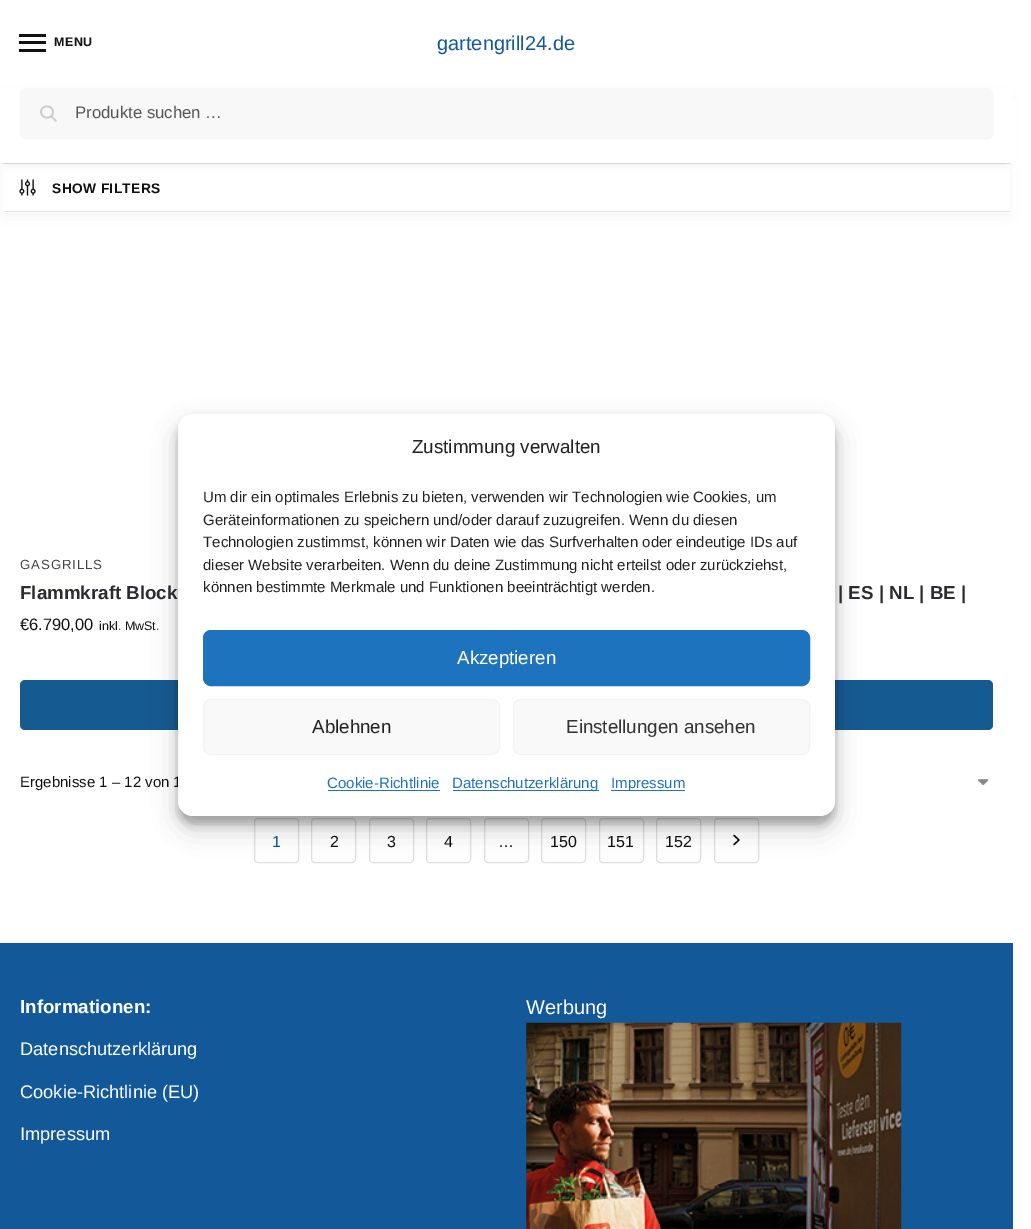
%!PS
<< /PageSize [1031 1229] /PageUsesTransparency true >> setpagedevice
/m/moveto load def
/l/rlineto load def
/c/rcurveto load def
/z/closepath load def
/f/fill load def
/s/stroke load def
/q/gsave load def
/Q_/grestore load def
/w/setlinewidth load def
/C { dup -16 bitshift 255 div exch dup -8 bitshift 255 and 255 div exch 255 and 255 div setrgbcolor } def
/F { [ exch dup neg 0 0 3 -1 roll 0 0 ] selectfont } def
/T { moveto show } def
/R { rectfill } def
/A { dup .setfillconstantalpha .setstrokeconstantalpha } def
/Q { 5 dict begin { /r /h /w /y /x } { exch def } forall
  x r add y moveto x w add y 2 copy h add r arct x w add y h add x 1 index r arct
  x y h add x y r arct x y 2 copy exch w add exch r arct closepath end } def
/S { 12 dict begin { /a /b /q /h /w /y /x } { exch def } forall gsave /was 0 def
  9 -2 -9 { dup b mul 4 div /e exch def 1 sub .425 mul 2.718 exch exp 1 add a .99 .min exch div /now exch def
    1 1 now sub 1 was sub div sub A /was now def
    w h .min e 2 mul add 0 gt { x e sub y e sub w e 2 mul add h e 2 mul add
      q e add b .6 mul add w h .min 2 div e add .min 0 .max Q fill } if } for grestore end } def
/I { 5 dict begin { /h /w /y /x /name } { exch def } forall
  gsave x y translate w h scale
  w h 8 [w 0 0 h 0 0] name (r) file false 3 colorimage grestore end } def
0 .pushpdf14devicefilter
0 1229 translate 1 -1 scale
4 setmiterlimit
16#FFFFFF C
0 0 1031 1229 R
16#111111 C
19 34 27 3 R
19 41 27 3 R
/LiberationSans-Bold 12.5 F
54 46 m .5 0 (MENU) ashow
19 49 27 3 R
/LiberationSans-Regular 20 F
16#13599A C
(gartengrill24.de) 437 50 T
16#000000 C
5 170 1003 45 0 7.5 .06 S
16#FFFFFF C
3 164 1007 49 R
16#E2E2E2 C
3 163 1007 1 R
16#000000 C
6 98 1000 62 0 6 .18 S
16#FFFFFF C
0 88 1013 75 R
16#000000 C
20 89 973 50 6 1 .05 S
16#F8F8F8 C
20 88 973 50 6 Q f
16#CCCCCC C
1.7 w
1 setlinecap
1 setlinejoin
56 121 m -5 -5 l 53 112 m 0 7.5 -11.5 7.5 -12 0 c 0 -7.5 12 -7.5 12 0 c z s
/LiberationSans-Regular 16.75 F
16#555555 C
(Produkte suchen …) 75 118 T
16#FFFFFF C
1013 98 3 113 R
16#E2E2E2 C
3 211 1007 1 R
(1.rgb) 19 179 17 17 I
/LiberationSans-Bold 13.75 F
16#111111 C
52 193 m .4 0 (SHOW FILTERS) ashow
/LiberationSans-Regular 13.25 F
16#444444 C
20 569 m .9 0 (GASGRILLS) ashow
/LiberationSans-Bold 18.75 F
16#2C2D33 C
(Flammkraft Block) 20 599 T
/LiberationSans-Regular 16.5 F
16#111111 C
(€) 20 630 T
(6.790,00) 29 630 T
/LiberationSans-Regular 12.5 F
(inkl. MwSt.) 99 630 T
16#165A92 C
20 680 474 50 5 Q f
/LiberationSans-Bold 18.75 F
16#2C2D33 C
(| ES | NL | BE |) 838 599 T
16#165A92 C
519 680 474 50 5 Q f
/LiberationSans-Regular 15 F
16#111111 C
(Ergebnisse 1 – 12 von 1) 20 787 T
(2.rgb) 977 779 12 7 I
16#DFDEDE C
1 w
0 setlinecap
0 setlinejoin
254.5 818.5 44 44 3.5 Q s
/LiberationSans-Regular 16 F
16#13599A C
(1) 272 847 T
16#DFDEDE C
311.5 818.5 44 44 3.5 Q s
16#111111 C
(2) 330 847 T
16#DFDEDE C
369.5 818.5 44 44 3.5 Q s
16#111111 C
(3) 387 847 T
16#DFDEDE C
426.5 818.5 44 44 3.5 Q s
16#111111 C
(4) 444 847 T
16#DFDEDE C
484.5 818.5 44 44 3.5 Q s
16#000000 C
(…) 498 847 T
16#DFDEDE C
541.5 818.5 44 44 3.5 Q s
16#111111 C
(150) 550 847 T
16#DFDEDE C
599.5 818.5 44 44 3.5 Q s
16#111111 C
(151) 607 847 T
16#DFDEDE C
656.5 818.5 44 44 3.5 Q s
16#111111 C
(152) 665 847 T
16#DFDEDE C
714.5 818.5 44 44 3.5 Q s
16#111111 C
1.4 w
1 setlinecap
1 setlinejoin
734 835.5 m 5 4.5 l -5 4.5 l s
16#13599A C
0 943 1013 286 R
/LiberationSans-Bold 18.75 F
16#FFFFFF C
(Informationen:) 20 1013 T
/LiberationSans-Regular 18.25 F
(Datenschutzerklärung) 20 1055 T
(Cookie-Richtlinie \(EU\)) 20 1098 T
(Impressum) 20 1140 T
/LiberationSans-Regular 20 F
(Werbung) 526 1014 T
(3.rgb) 526 1022 376 207 I
16#000000 C
178 421 657 403 15 4 .23 S
178 426 657 403 15 12.5 .19 S
16#FFFFFF C
178 414 657 402 15 Q f
/LiberationSans-Regular 18.75 F
16#222222 C
(Zustimmung verwalten) 412 453 T
/LiberationSans-Regular 15 F
(Um dir ein optimales Erlebnis zu bieten, verwenden wir Technologien wie Cookies, um) 203 502 T
(Geräteinformationen zu speichern und/oder darauf zuzugreifen. Wenn du diesen) 203 525 T
(Technologien zustimmst, können wir Daten wie das Surfverhalten oder eindeutige IDs auf) 203 547 T
(dieser Website verarbeiten. Wenn du deine Zustimmung nicht erteilst oder zurückziehst,) 203 570 T
(können bestimmte Merkmale und Funktionen beeinträchtigt werden.) 203 592 T
16#1E73BE C
203.5 630.5 606 55 7.5 Q q f Q_
1 w
0 setlinecap
0 setlinejoin
s
/LiberationSans-Regular 18.75 F
16#FFFFFF C
(Akzeptieren) 457 664 T
16#F9F9F9 C
203.5 699.5 296 55 7.5 Q q f Q_
16#F2F2F2 C
s
16#222222 C
(Ablehnen) 312 733 T
16#F9F9F9 C
513.5 699.5 296 55 7.5 Q q f Q_
16#F2F2F2 C
s
16#333333 C
(Einstellungen ansehen) 566 733 T
/LiberationSans-Regular 15 F
16#1E73BE C
(Cookie-Richtlinie) 327 788 T
328 790 112 1 R
453 790 146 1 R
(Datenschutzerklärung) 452 788 T
611 790 74 1 R
(Impressum) 611 788 T
.poppdf14devicefilter showpage
